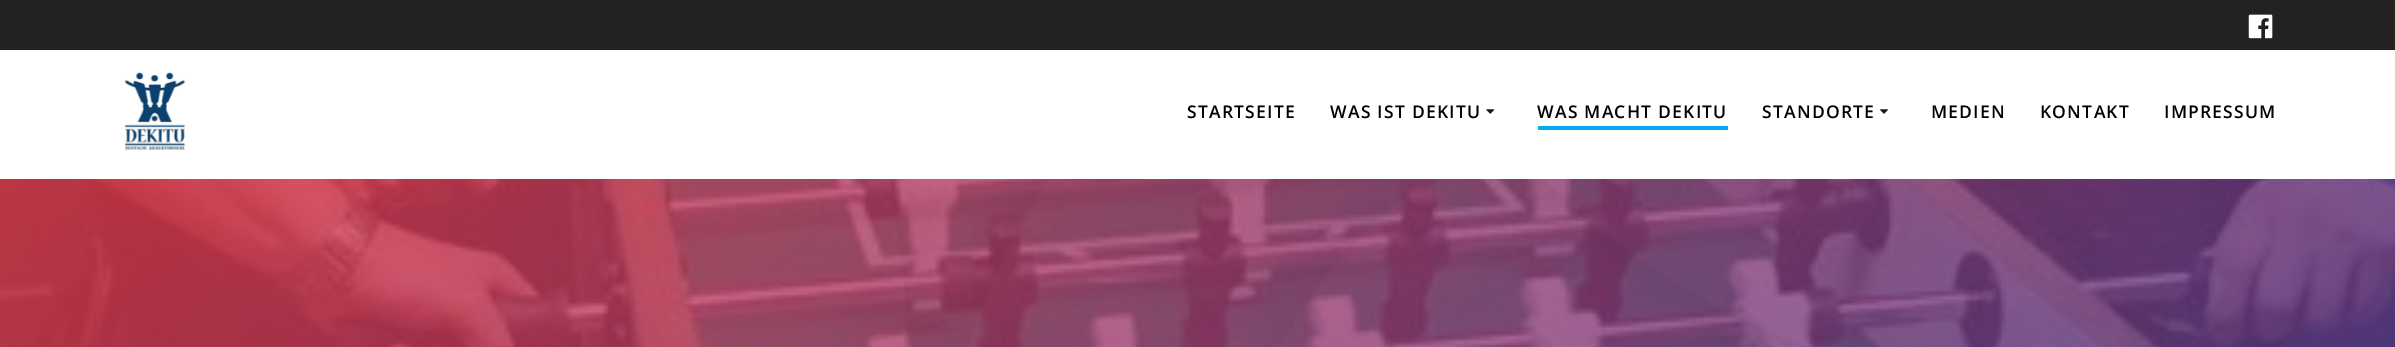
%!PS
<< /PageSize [2395 347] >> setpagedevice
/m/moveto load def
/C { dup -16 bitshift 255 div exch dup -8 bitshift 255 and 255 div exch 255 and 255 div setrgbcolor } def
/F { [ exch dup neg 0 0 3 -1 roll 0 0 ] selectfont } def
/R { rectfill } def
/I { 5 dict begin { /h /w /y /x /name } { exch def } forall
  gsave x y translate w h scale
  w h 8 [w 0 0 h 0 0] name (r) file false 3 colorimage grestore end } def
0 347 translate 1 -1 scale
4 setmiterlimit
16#FFFFFF C
0 0 2395 347 R
16#222222 C
0 0 2395 50 R
(1.rgb) 2248 14 25 25 I
(2.rgb) 124 72 62 79 I
/OpenSans-SemiBold 17.5 F
16#000000 C
1187 118 m 1.25 0 (STARTSEITE) ashow
1330 118 m 1.25 0 (WAS IST DEKITU) ashow
(3.rgb) 1486 109 9 5 I
16#03A9F4 C
1538 126 190 4 R
16#000000 C
1537 118 m 1.25 0 (WAS MACHT DEKITU) ashow
1762 118 m 1.25 0 (STANDORTE) ashow
(4.rgb) 1880 109 8 5 I
1931 118 m 1.25 0 (MEDIEN) ashow
2040 118 m 1.25 0 (KONTAKT) ashow
2164 118 m 1.25 0 (IMPRESSUM) ashow
(5.rgb) 0 179 2395 168 I
(6.rgb) 889 179 1485 168 I
showpage
